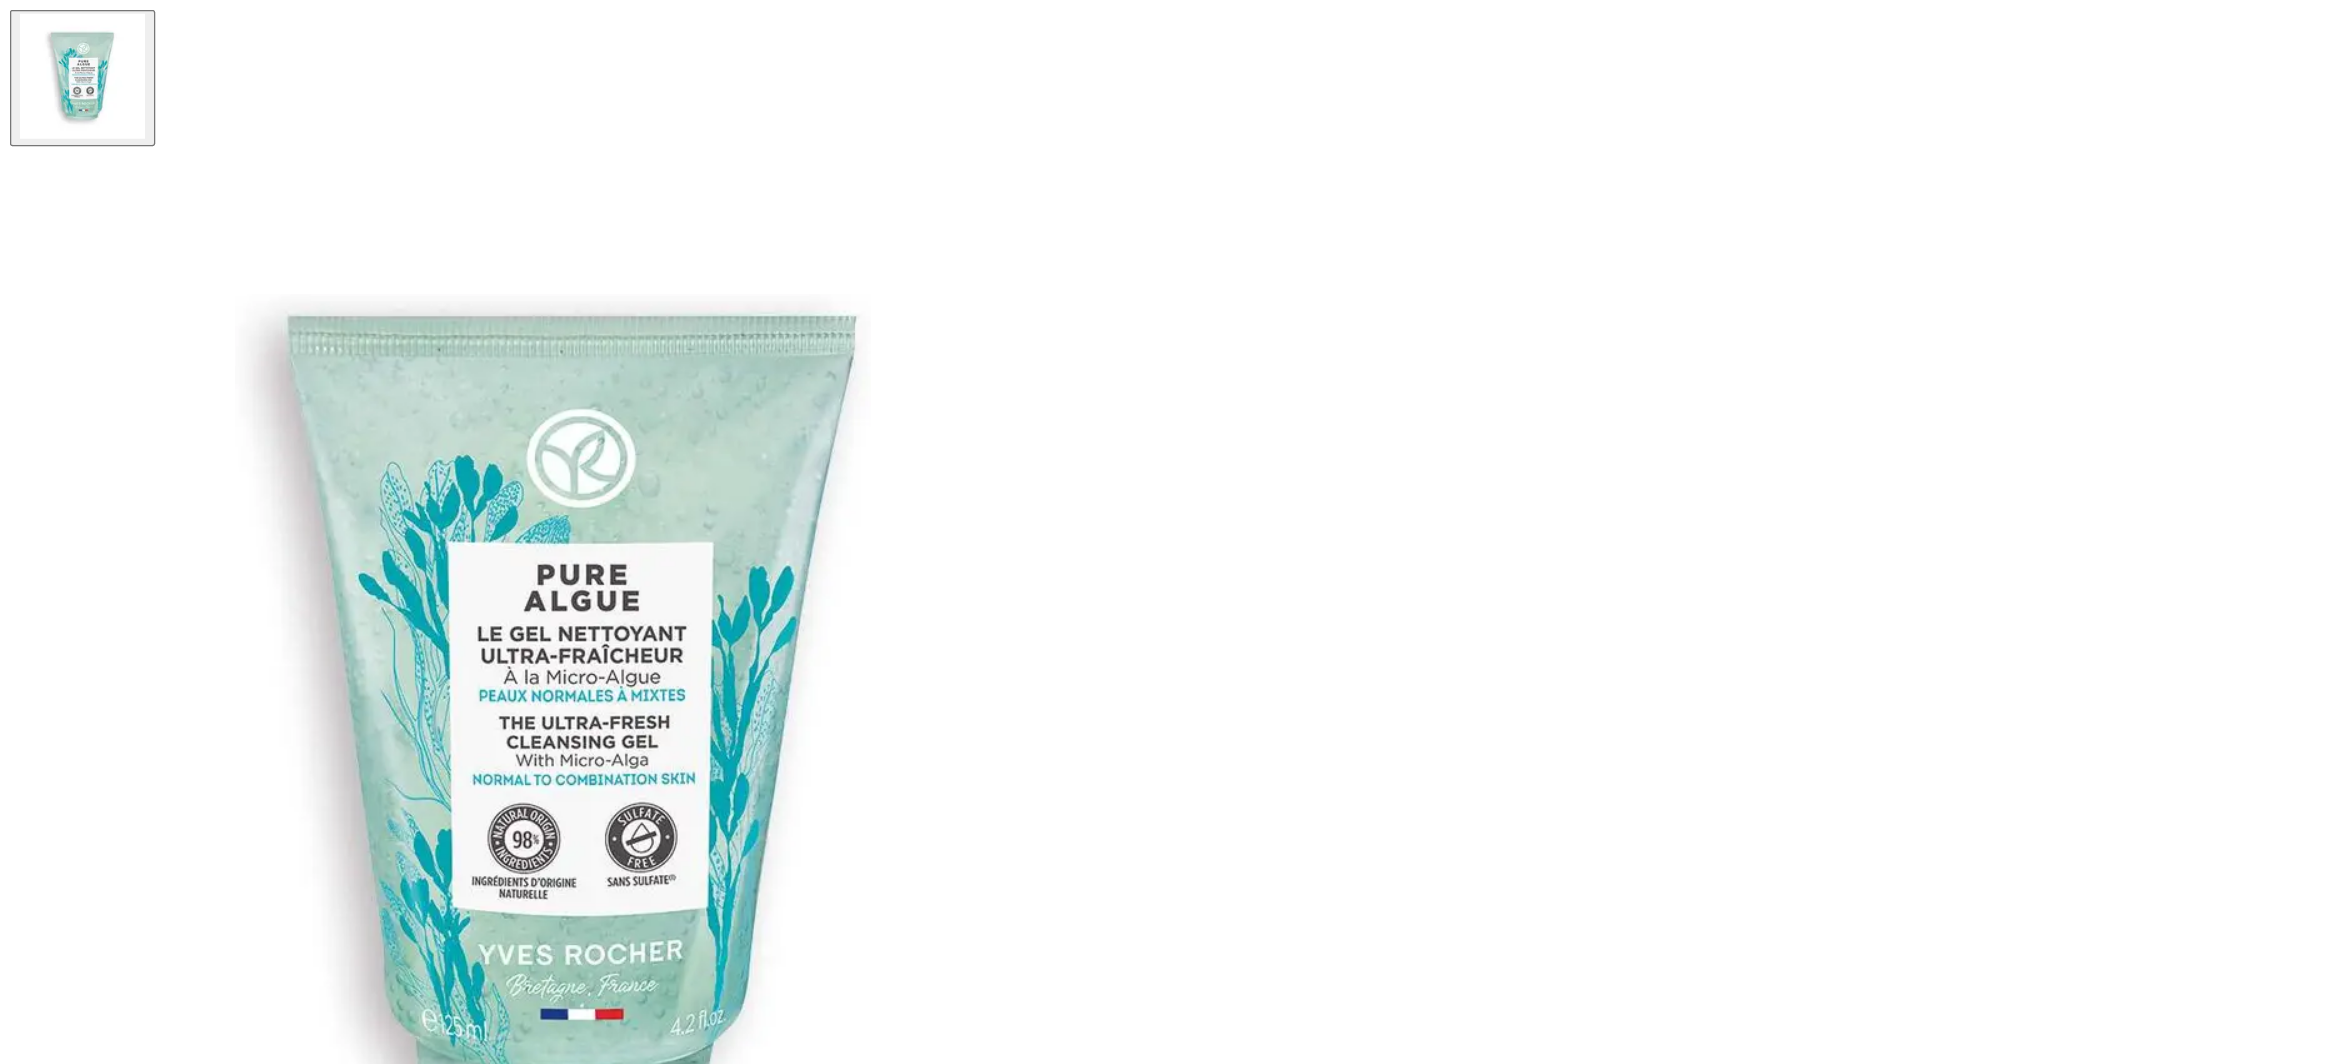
%!PS
<< /PageSize [2339 1064] >> setpagedevice
/f/fill load def
/s/stroke load def
/q/gsave load def
/Q_/grestore load def
/C { dup -16 bitshift 255 div exch dup -8 bitshift 255 and 255 div exch 255 and 255 div setrgbcolor } def
/R { rectfill } def
/Q { 5 dict begin { /r /h /w /y /x } { exch def } forall
  x r add y moveto x w add y 2 copy h add r arct x w add y h add x 1 index r arct
  x y h add x y r arct x y 2 copy exch w add exch r arct closepath end } def
/I { 5 dict begin { /h /w /y /x /name } { exch def } forall
  gsave x y translate w h scale
  w h 8 [w 0 0 h 0 0] name (r) file false 3 colorimage grestore end } def
0 1064 translate 1 -1 scale
4 setmiterlimit
16#FFFFFF C
0 0 2339 1064 R
16#EFEFEF C
10.5 10.5 144 135 2 Q q f Q_
16#767676 C
s
(1.rgb) 20 13 125 126 I
(2.rgb) 235 294 636 770 I
showpage
